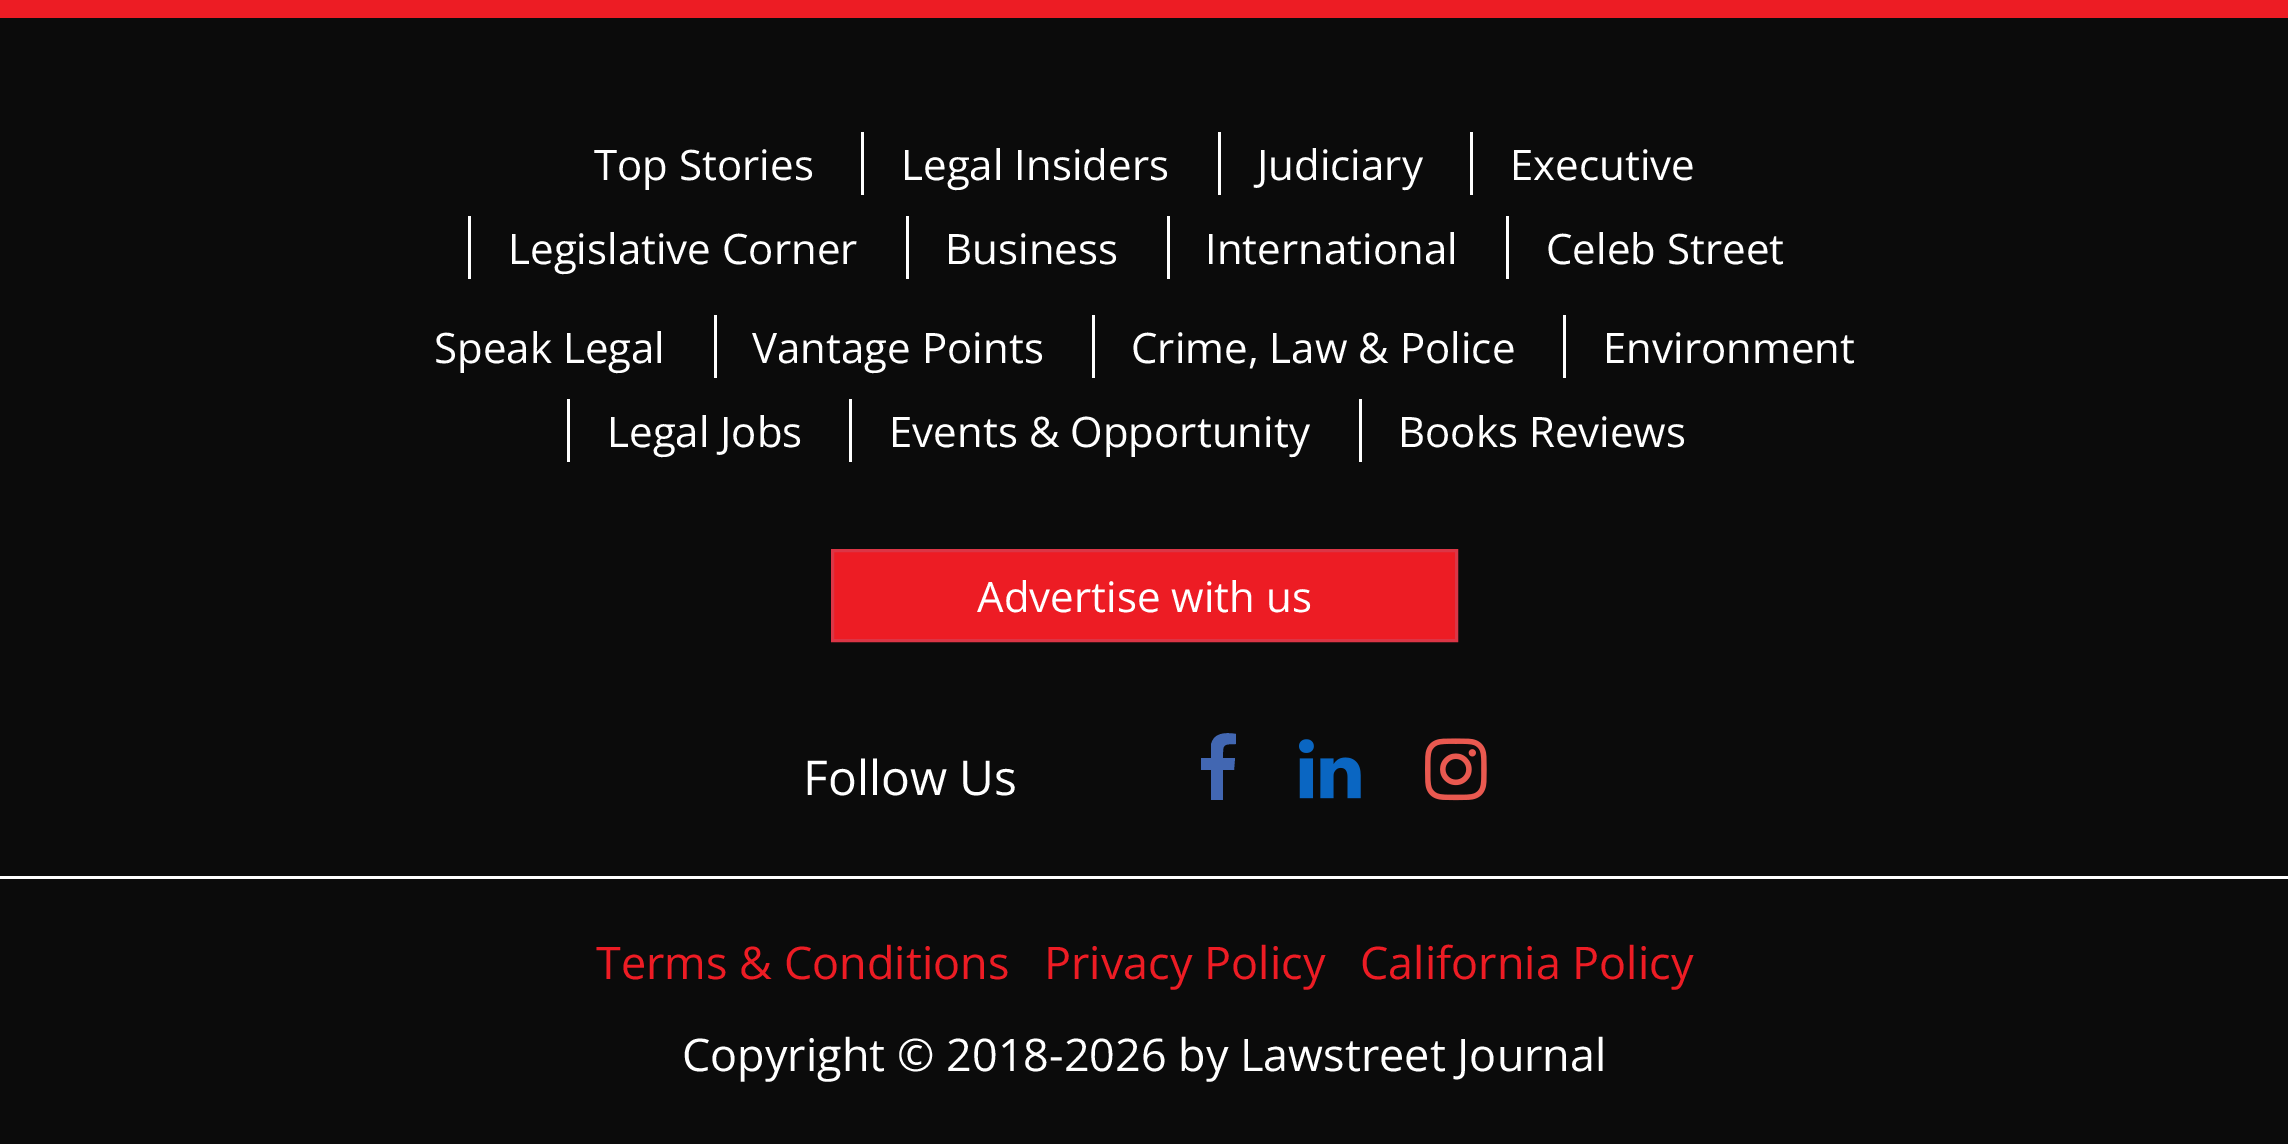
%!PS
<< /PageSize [2288 1144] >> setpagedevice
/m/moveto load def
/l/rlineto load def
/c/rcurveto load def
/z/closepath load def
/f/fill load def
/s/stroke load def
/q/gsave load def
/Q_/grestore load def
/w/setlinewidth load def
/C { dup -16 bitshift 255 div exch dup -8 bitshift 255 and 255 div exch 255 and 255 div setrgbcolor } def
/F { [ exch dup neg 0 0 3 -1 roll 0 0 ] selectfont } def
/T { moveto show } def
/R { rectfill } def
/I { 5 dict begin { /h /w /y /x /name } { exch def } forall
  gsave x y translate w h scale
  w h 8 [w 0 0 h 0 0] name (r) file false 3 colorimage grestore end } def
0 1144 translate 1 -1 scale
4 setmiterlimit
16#ED1C24 C
0 0 2288 1144 R
16#0B0B0B C
0 18 2288 1126 R
/OpenSans-Regular 42 F
16#FFFFFF C
(Top Stories) 594 180 T
861 132 3 63 R
(Legal Insiders) 901 180 T
1218 132 3 63 R
(Judiciary) 1257 180 T
1470 132 3 63 R
(Executive) 1510 180 T
468 216 3 63 R
(Legislative Corner) 508 264 T
906 216 3 63 R
(Business) 945 264 T
1167 216 3 63 R
(International) 1205 264 T
1506 216 3 63 R
(Celeb Street) 1546 264 T
(Speak Legal) 434 363 T
714 315 3 63 R
(Vantage Points) 752 363 T
1092 315 3 63 R
(Crime, Law & Police) 1131 363 T
1563 315 3 63 R
(Environment) 1603 363 T
567 399 3 63 R
(Legal Jobs) 607 447 T
849 399 3 63 R
(Events & Opportunity) 889 447 T
1359 399 3 63 R
(Books Reviews) 1398 447 T
16#ED1C24 C
832.5 550.5 m 624 0 l 0 90 l -624 0 l z q f Q_
16#DC3545 C
3 w
s
16#FFFFFF C
(Advertise with us) 977 612 T
/OpenSans-Regular 48 F
(Follow Us) 803 795 T
16#4267B2 C
1236 734 m 0 10 l -14 0 -13 1 -13 14 c 12 0 l -1 12 l -11 0 l 0 30 l -12 0 l 0 -30 l -10 0 l 0 -12 l 10 0 l 0 -13 l 2 -12 14 -13 25 -11 c z f
(1.rgb) 1299 739 62 60 I
(2.rgb) 1425 738 62 63 I
16#FFFFFF C
0 876 2288 3 R
/OpenSans-Regular 45 F
16#ED1C24 C
(Terms & Conditions) 596 979 T
(Privacy Policy) 1044 979 T
(California Policy) 1360 979 T
16#FFFFFF C
(Copyright © 2018-2026 by Lawstreet Journal) 682 1071 T
showpage
